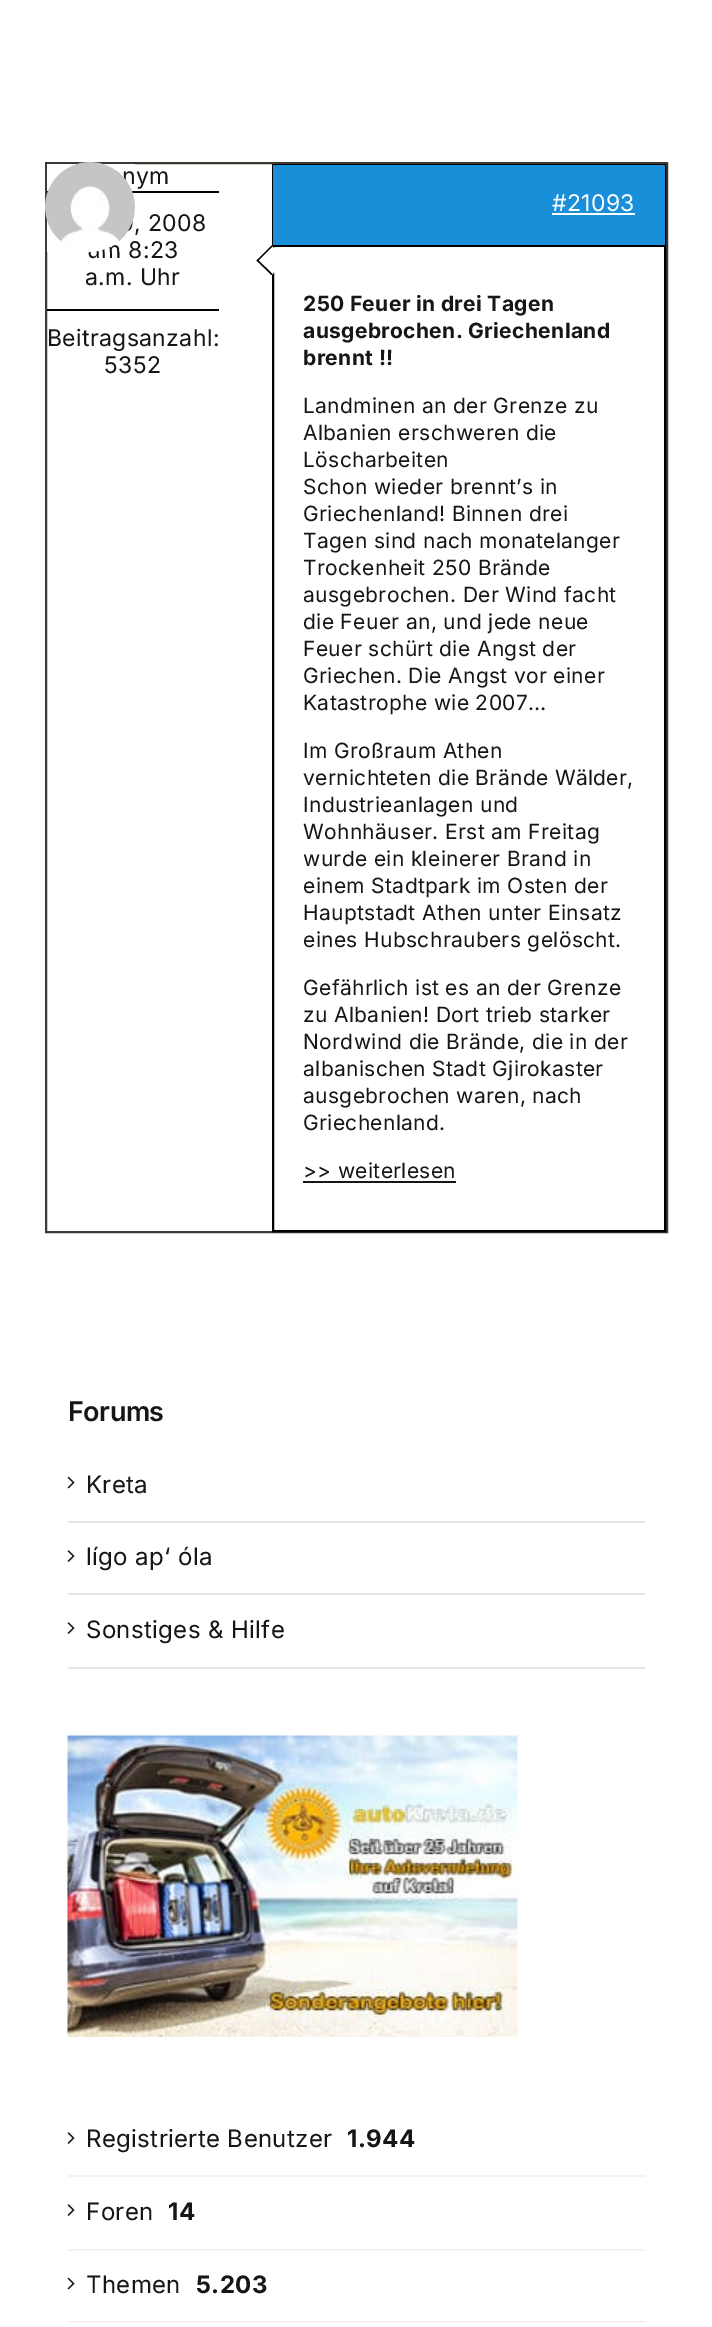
%!PS
<< /PageSize [712 2327] >> setpagedevice
/m/moveto load def
/l/rlineto load def
/z/closepath load def
/f/fill load def
/w/setlinewidth load def
/C { dup -16 bitshift 255 div exch dup -8 bitshift 255 and 255 div exch 255 and 255 div setrgbcolor } def
/F { [ exch dup neg 0 0 3 -1 roll 0 0 ] selectfont } def
/R { rectfill } def
/I { 5 dict begin { /h /w /y /x /name } { exch def } forall
  gsave x y translate w h scale
  w h 8 [w 0 0 h 0 0] name (r) file false 3 colorimage grestore end } def
0 2327 translate 1 -1 scale
4 setmiterlimit
16#FFFFFF C
0 0 712 2327 R
16#3F3933 C
2 w
46 163 621 1069 rectstroke
/Inter-Regular 23 F
16#141617 C
122 184 m .35 0 (nym) ashow
16#000000 C
47 191 172 2 R
16#141617 C
87 258 m .35 0 (um 8:23) ashow
(1.rgb) 45 162 90 90 I
16#000000 C
47 309 172 2 R
16#141617 C
134 231 m .35 0 (, 2008) ashow
85 285 m .35 0 (a.m. Uhr) ashow
47 346 m .35 0 (Beitragsanzahl:) ashow
104 373 m .35 0 (5352) ashow
16#000000 C
273 165 392 1066 rectstroke
16#198FD9 C
273 165 392 80 R
16#000000 C
273 245 392 2 R
16#FFFFFF C
552 211 m .35 0 (#21093) ashow
552 213 83 2 R
271.5 245.5 m 15 15 l -15 14.5 l -15 -14.5 l z f
16#000000 C
257.5 259.5 m 15 14.5 l -1 1 l -15 -14.5 l z f
271.5 245.5 m 1 1 l -15 15 l -1 -1 l z f
/Inter-Bold 21 F
16#141617 C
303 311 m .35 0 (250 Feuer in drei Tagen) ashow
303 338 m .35 0 (ausgebrochen. Griechenland) ashow
303 365 m .35 0 (brennt !!) ashow
/Inter-Regular 21 F
303 413 m .35 0 (Landminen an der Grenze zu) ashow
303 440 m .35 0 (Albanien erschweren die) ashow
303 467 m .35 0 (Löscharbeiten) ashow
303 494 m .35 0 (Schon wieder brennt’s in) ashow
303 521 m .35 0 (Griechenland! Binnen drei) ashow
303 548 m .35 0 (Tagen sind nach monatelanger) ashow
303 575 m .35 0 (Trockenheit 250 Brände) ashow
303 602 m .35 0 (ausgebrochen. Der Wind facht) ashow
303 629 m .35 0 (die Feuer an, und jede neue) ashow
303 656 m .35 0 (Feuer schürt die Angst der) ashow
303 683 m .35 0 (Griechen. Die Angst vor einer) ashow
303 710 m .35 0 (Katastrophe wie 2007…) ashow
303 758 m .35 0 (Im Großraum Athen) ashow
303 785 m .35 0 (vernichteten die Brände Wälder,) ashow
303 812 m .35 0 (Industrieanlagen und) ashow
303 839 m .35 0 (Wohnhäuser. Erst am Freitag) ashow
303 866 m .35 0 (wurde ein kleinerer Brand in) ashow
303 893 m .35 0 (einem Stadtpark im Osten der) ashow
303 920 m .35 0 (Hauptstadt Athen unter Einsatz) ashow
303 947 m .35 0 (eines Hubschraubers gelöscht.) ashow
303 995 m .35 0 (Gefährlich ist es an der Grenze) ashow
303 1022 m .35 0 (zu Albanien! Dort trieb starker) ashow
303 1049 m .35 0 (Nordwind die Brände, die in der) ashow
303 1076 m .35 0 (albanischen Stadt Gjirokaster) ashow
303 1103 m .35 0 (ausgebrochen waren, nach) ashow
303 1130 m .35 0 (Griechenland.) ashow
303 1178 m .35 0 (>> weiterlesen) ashow
303 1181 153 2 R
/Inter-SemiBold 27 F
68 1421 m -.5 0 (Forums) ashow
16#E7E6E6 C
68 1521 577 2 R
(2.rgb) 67 1476 8 13 I
/Inter-Regular 24 F
16#141617 C
86 1493 m .35 0 (Kreta) ashow
16#E7E6E6 C
68 1593 577 2 R
(3.rgb) 67 1550 8 12 I
16#141617 C
86 1565 m .35 0 (lígo ap‘ óla) ashow
16#E7E6E6 C
68 1667 577 2 R
(3.rgb) 67 1622 8 12 I
16#141617 C
86 1638 m .35 0 (Sonstiges & Hilfe) ashow
(4.rgb) 67 1735 451 302 I
(3.rgb) 67 2132 8 12 I
86 2147 m .35 0 (Registrierte Benutzer) ashow
16#F2F3F5 C
68 2175 577 2 R
/Inter-Bold 24 F
16#141617 C
347 2147 m .35 0 (1.944) ashow
(3.rgb) 67 2204 8 12 I
/Inter-Regular 24 F
86 2220 m .35 0 (Foren) ashow
16#F2F3F5 C
68 2249 577 2 R
/Inter-Bold 24 F
16#141617 C
168 2220 m .35 0 (14) ashow
(2.rgb) 67 2277 8 13 I
/Inter-Regular 24 F
86 2293 m .35 0 (Themen) ashow
16#F2F3F5 C
68 2321 577 2 R
/Inter-Bold 24 F
16#141617 C
196 2293 m .35 0 (5.203) ashow
showpage
